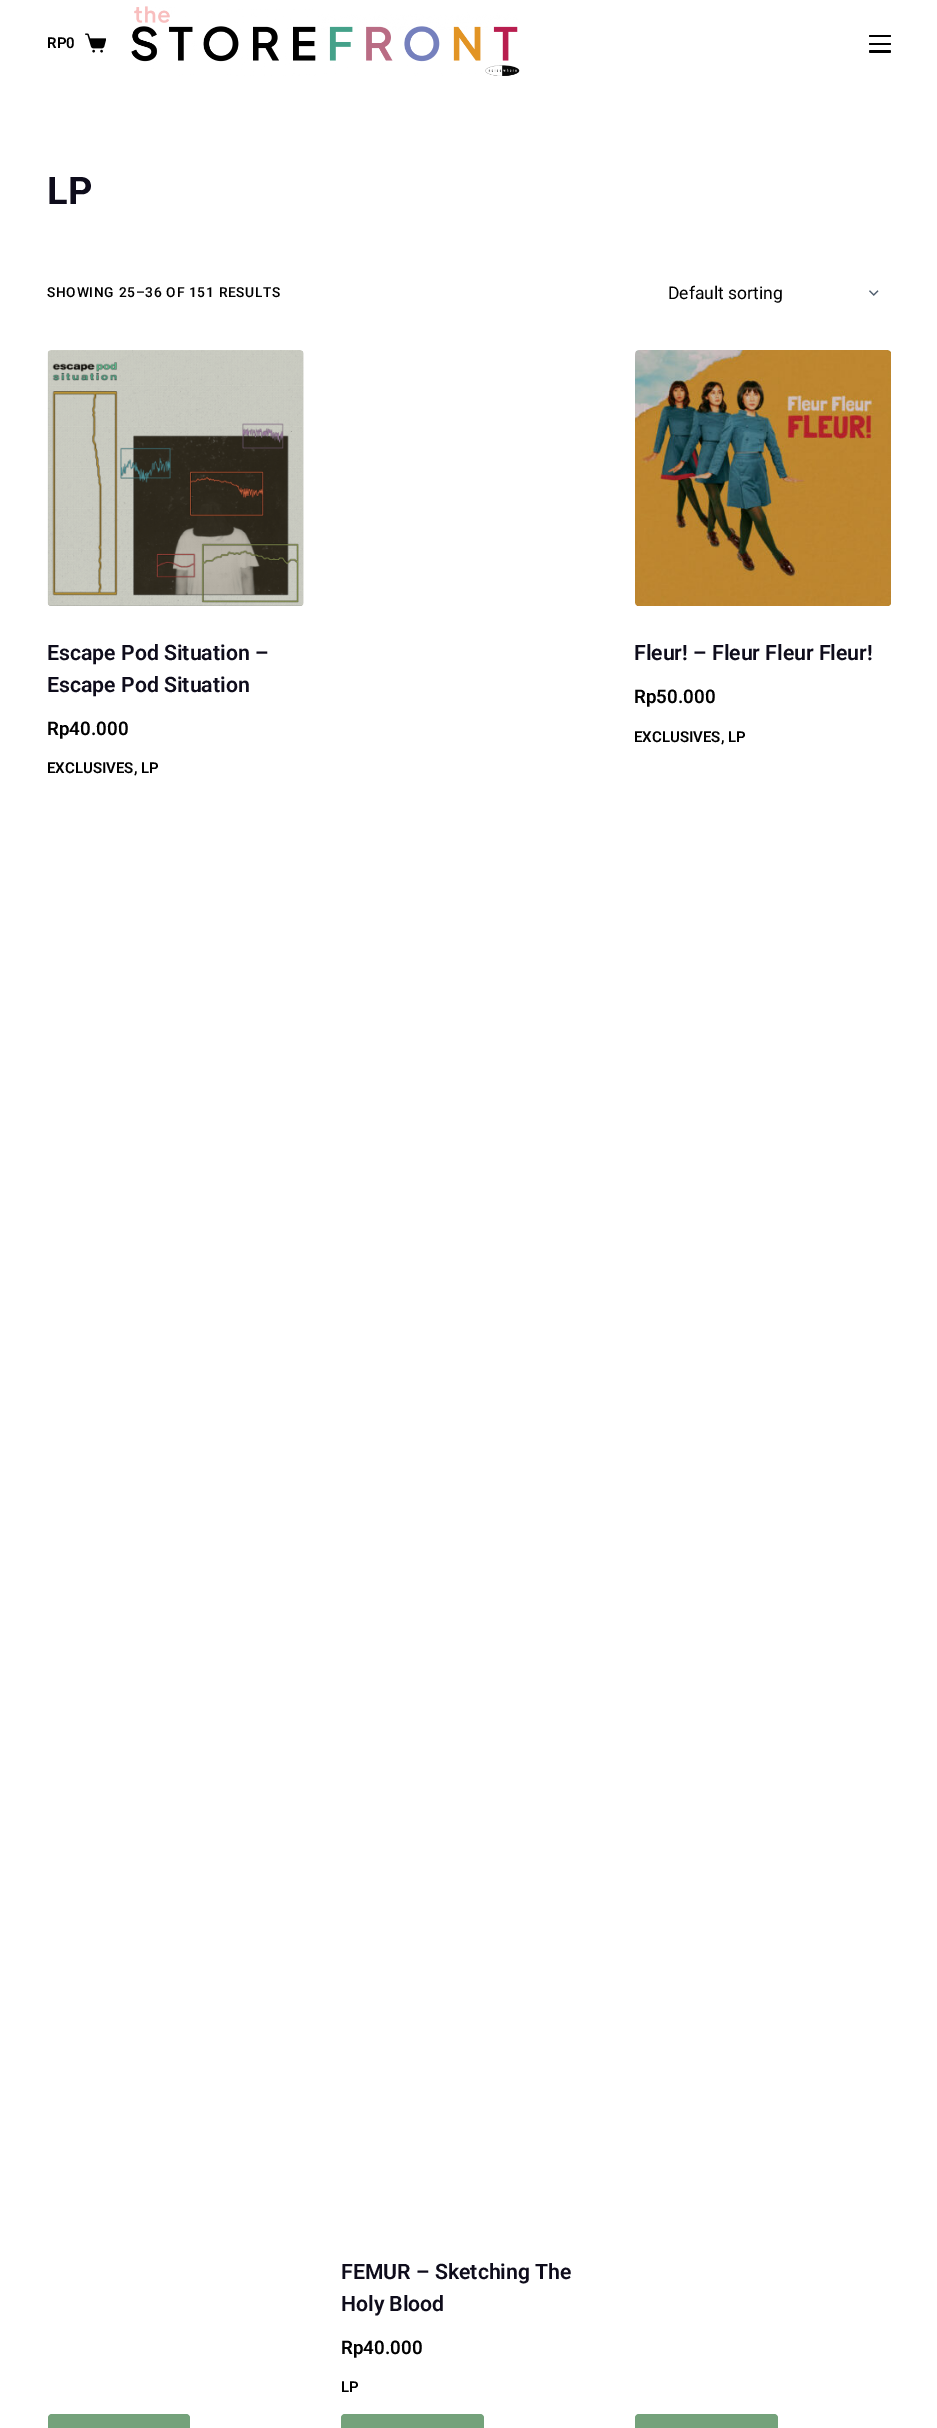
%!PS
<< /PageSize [937 2428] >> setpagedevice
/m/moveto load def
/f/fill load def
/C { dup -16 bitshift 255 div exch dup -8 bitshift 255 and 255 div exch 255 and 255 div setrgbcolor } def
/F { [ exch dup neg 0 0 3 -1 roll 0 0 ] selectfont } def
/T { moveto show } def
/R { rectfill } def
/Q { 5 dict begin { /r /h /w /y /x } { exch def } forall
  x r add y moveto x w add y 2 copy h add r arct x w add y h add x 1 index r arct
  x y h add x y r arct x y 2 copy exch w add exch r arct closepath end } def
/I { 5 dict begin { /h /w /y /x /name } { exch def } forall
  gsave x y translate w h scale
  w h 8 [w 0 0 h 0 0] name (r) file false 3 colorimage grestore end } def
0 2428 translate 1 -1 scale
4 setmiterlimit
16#FFFFFF C
0 0 937 2428 R
/Roboto-SemiBold 15 F
16#000000 C
(RP0) 47 48 T
(1.rgb) 85 33 21 20 I
(2.rgb) 131 6 389 70 I
869 35 22 2 1 Q f
869 43 22 2 1 Q f
869 50 22 3 1.5 Q f
/Roboto-Bold 38 F
16#0E0C1B C
(LP) 47 204 T
/Roboto-Medium 13.75 F
16#000000 C
47 297 m .7 0 (SHOWING 25–36 OF 151 RESULTS) ashow
(3.rgb) 869 290 10 6 I
/Roboto-Regular 17.5 F
(Default sorting) 668 299 T
(4.rgb) 47 350 257 256 I
/Roboto-SemiBold 21.25 F
16#0E0C1B C
(Escape Pod Situation –) 47 660 T
(Escape Pod Situation) 47 692 T
/Roboto-SemiBold 18.75 F
16#000000 C
(Rp40.000) 47 735 T
/Roboto-SemiBold 15 F
(EXCLUSIVES, LP) 47 773 T
16#74A27B C
48 2414 142 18 4 Q f
(5.rgb) 635 350 256 256 I
/Roboto-SemiBold 21.25 F
16#0E0C1B C
(Fleur! – Fleur Fleur Fleur!) 634 660 T
/Roboto-SemiBold 18.75 F
16#000000 C
(Rp50.000) 634 703 T
/Roboto-SemiBold 15 F
(EXCLUSIVES, LP) 634 742 T
16#74A27B C
635 2414 143 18 4 Q f
/Roboto-SemiBold 21.25 F
16#0E0C1B C
(FEMUR – Sketching The) 341 2279 T
(Holy Blood) 341 2311 T
/Roboto-SemiBold 18.75 F
16#000000 C
(Rp40.000) 341 2354 T
/Roboto-SemiBold 15 F
(LP) 341 2392 T
16#74A27B C
341 2414 143 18 4 Q f
showpage
